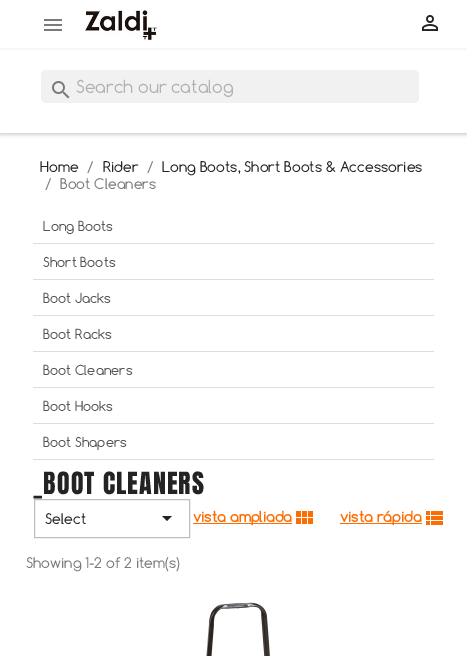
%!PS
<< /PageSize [467 656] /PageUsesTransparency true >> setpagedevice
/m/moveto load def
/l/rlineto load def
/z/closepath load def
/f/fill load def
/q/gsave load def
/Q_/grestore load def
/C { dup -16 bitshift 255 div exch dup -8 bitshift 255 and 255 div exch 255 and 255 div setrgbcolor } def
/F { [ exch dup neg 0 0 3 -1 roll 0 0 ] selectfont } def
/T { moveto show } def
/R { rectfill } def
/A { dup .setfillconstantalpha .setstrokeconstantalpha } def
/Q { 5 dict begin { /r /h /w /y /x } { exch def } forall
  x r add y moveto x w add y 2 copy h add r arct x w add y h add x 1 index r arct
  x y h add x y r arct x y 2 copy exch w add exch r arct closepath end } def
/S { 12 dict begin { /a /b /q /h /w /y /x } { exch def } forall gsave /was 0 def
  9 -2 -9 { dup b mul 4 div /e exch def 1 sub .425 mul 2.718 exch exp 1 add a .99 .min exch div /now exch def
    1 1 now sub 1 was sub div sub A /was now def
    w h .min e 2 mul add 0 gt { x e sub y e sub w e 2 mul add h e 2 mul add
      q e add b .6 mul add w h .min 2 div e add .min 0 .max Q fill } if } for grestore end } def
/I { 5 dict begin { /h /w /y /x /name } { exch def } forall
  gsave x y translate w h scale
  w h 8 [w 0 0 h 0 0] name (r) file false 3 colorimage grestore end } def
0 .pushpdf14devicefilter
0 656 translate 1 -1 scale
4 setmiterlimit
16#FFFFFF C
0 0 467 656 R
q
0 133 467 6 rectclip
16#BFBFBF C
0 1 467 133 0 2.5 1 S
Q_
16#F6F6F6 C
0 48 467 2 R
(1.rgb) 44 19 18 12 I
(2.rgb) 85 9 73 32 I
(3.rgb) 422 15 16 16 I
16#F1F1F1 C
41 70 378 33 5 Q f
(4.rgb) 52 81 18 18 I
/Comfortaa-Regular 17 F
16#B1B1B1 C
(Search our catalog) 76 93 T
/Comfortaa-Regular 14 F
16#232323 C
(Home) 40 172 T
16#7A7A7A C
(/) 87 172 T
16#232323 C
(Rider) 103 172 T
16#7A7A7A C
(/) 147 172 T
16#232323 C
(Long Boots, Short Boots & Accessories) 162 172 T
16#7A7A7A C
(/) 45 189 T
(Boot Cleaners) 60 189 T
16#DDDDDD C
33 243 401 1 R
/Comfortaa-Regular 13 F
16#545454 C
(Long Boots) 43 231 T
16#DDDDDD C
33 279 401 1 R
16#545454 C
(Short Boots) 43 267 T
16#DDDDDD C
33 315 401 1 R
16#545454 C
(Boot Jacks) 43 303 T
16#DDDDDD C
33 351 401 1 R
16#545454 C
(Boot Racks) 43 339 T
16#DDDDDD C
33 387 401 1 R
16#545454 C
(Boot Cleaners) 43 375 T
16#DDDDDD C
33 423 401 1 R
16#545454 C
(Boot Hooks) 43 411 T
16#DDDDDD C
33 459 401 1 R
16#545454 C
(Boot Shapers) 43 447 T
/Anton-Regular 26 F
16#232323 C
33 494 m 1 0 (_BOOT CLEANERS) ashow
16#BFBFBF C
34.5 499.5 155 38 rectstroke
/Comfortaa-Regular 14 F
16#232323 C
(Select) 45 524 T
162 516 m 10 0 l -5 5 l z f
16#FA6E04 C
193 523 99 1 R
/Comfortaa-Bold 14 F
(vista ampliada) 193 522 T
(5.rgb) 296 511 17 13 I
340 523 82 1 R
(vista rápida) 340 522 T
(6.rgb) 426 511 17 14 I
/Comfortaa-Regular 14 F
16#7A7A7A C
(Showing 1-2 of 2 item\(s\)) 26 568 T
(7.rgb) 206 602 64 54 I
.poppdf14devicefilter showpage
